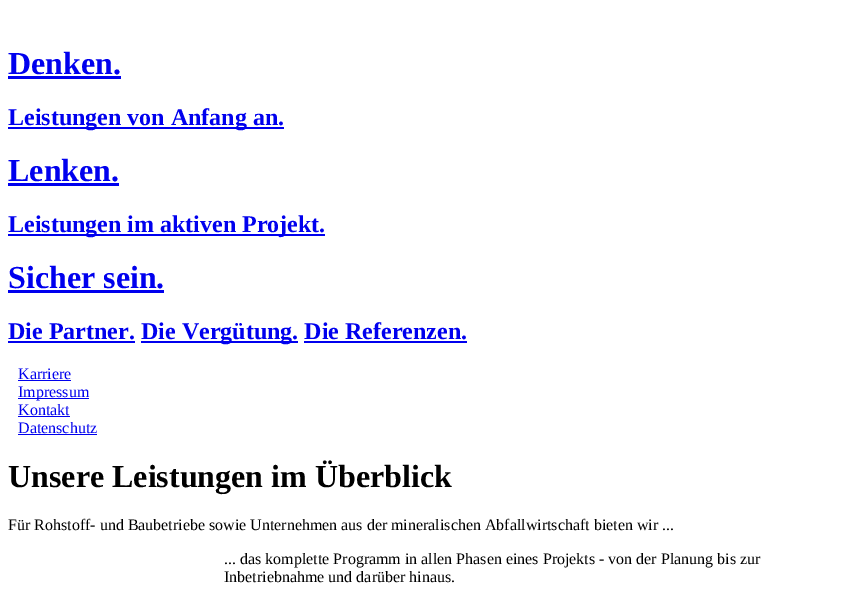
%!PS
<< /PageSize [850 596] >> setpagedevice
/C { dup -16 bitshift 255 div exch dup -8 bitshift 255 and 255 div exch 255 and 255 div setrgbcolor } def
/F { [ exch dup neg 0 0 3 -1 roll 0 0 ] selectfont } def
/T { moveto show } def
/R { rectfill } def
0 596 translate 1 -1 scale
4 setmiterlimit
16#FFFFFF C
0 0 850 596 R
/LiberationSerif-Bold 32 F
16#0000EE C
(Denken.) 8 74 T
8 76 113 3 R
8 127 276 2 R
/LiberationSerif-Bold 24 F
(Leistungen von Anfang an.) 8 125 T
/LiberationSerif-Bold 32 F
(Lenken.) 8 181 T
8 183 111 3 R
8 234 317 2 R
/LiberationSerif-Bold 24 F
(Leistungen im aktiven Projekt.) 8 232 T
/LiberationSerif-Bold 32 F
(Sicher sein.) 8 288 T
8 290 156 3 R
/LiberationSerif-Bold 24 F
(Die Partner.) 8 339 T
8 341 127 2 R
141 341 157 2 R
(Die Vergütung. Die Referenzen.) 141 339 T
304 341 163 2 R
/LiberationSerif-Regular 16 F
(Karriere) 18 379 T
18 380 53 1 R
18 398 71 1 R
(Impressum) 18 397 T
(Kontakt) 18 415 T
18 416 52 1 R
(Datenschutz) 18 433 T
18 434 79 1 R
/LiberationSerif-Bold 32 F
16#000000 C
(Unsere Leistungen im Überblick) 8 487 T
/LiberationSerif-Regular 16 F
(Für Rohstoff- und Baubetriebe sowie Unternehmen aus der mineralischen Abfallwirtschaft bieten wir ...) 8 530 T
(... das komplette Programm in allen Phasen eines Projekts - von der Planung bis zur) 224 564 T
(Inbetriebnahme und darüber hinaus.) 224 582 T
showpage
